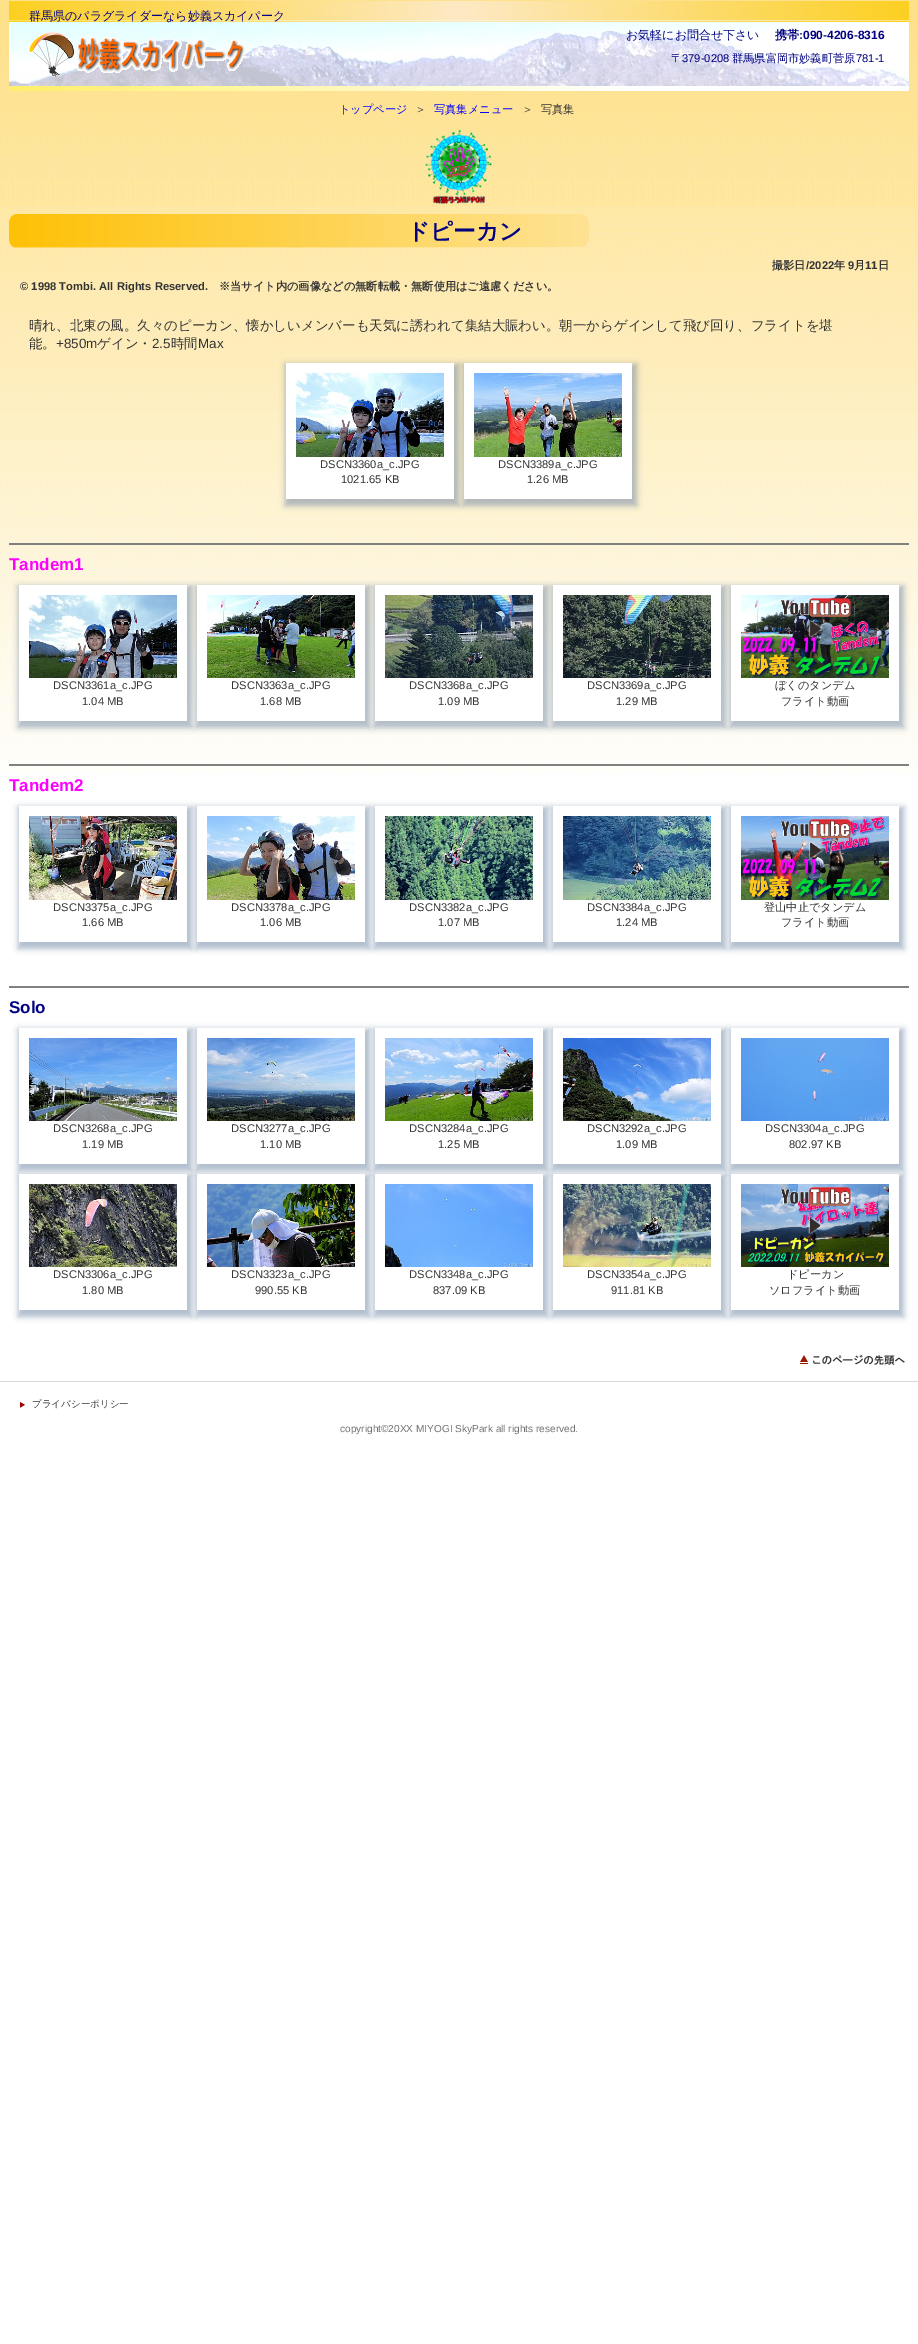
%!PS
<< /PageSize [918 2344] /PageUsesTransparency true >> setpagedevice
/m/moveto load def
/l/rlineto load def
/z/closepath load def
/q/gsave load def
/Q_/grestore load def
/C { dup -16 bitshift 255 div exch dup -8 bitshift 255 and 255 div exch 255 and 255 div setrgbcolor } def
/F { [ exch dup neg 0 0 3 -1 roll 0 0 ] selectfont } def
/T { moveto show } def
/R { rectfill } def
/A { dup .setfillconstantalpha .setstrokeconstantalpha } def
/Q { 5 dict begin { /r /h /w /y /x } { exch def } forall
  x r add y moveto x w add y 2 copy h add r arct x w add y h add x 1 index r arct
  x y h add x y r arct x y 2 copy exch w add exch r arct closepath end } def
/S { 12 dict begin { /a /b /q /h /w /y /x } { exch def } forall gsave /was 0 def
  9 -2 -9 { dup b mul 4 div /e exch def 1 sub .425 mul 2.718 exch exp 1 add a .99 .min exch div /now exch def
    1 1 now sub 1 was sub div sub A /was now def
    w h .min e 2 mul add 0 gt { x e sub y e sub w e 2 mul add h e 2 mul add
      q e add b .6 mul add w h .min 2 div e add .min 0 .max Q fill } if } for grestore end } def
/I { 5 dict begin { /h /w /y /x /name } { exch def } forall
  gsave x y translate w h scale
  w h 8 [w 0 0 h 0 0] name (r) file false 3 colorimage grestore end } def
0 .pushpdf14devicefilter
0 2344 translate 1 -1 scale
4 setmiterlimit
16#FFFFFF C
0 0 918 2344 R
(1.rgb) 0 0 918 774 I
(2.rgb) 9 20 900 71 I
(3.rgb) 9 1 900 21 I
(5.rgb) 9 22 900 64 I
/WenQuanYiZenHei-Medium 12 F
16#000080 C
(群馬県のパラグライダーなら妙義スカイパーク) 29 20 T
(4.rgb) 29 32 217 45 I
(お気軽にお問合せ下さい) 626 39 T
/WenQuanYiZenHei-Bold 12 F
(携帯) 775 39 T
/LiberationSans-Bold 12 F
(:090-4206-8316) 799 39 T
/WenQuanYiZenHei-Medium 11.2 F
(〒) 671 62 T
/LiberationSans-Regular 11.2 F
(379-0208) 682 62 T
/WenQuanYiZenHei-Medium 11.2 F
(群馬県富岡市妙義町菅原) 732 62 T
/LiberationSans-Regular 11.2 F
(781-1) 856 62 T
/WenQuanYiZenHei-Medium 11.2 F
16#0000FF C
(トップページ) 339 113 T
16#333333 C
(＞) 415 113 T
16#0000FF C
(写真集メニュー) 434 113 T
16#333333 C
(＞) 522 113 T
(写真集) 541 113 T
(6.rgb) 425 129 68 75 I
(7.rgb) 9 214 580 34 I
/WenQuanYiZenHei-Bold 22.5 F
16#000080 C
(ドピーカン) 407 239 T
/WenQuanYiZenHei-Bold 11.2 F
16#333333 C
(撮影日) 772 269 T
/LiberationSans-Bold 11.2 F
(/2022) 806 269 T
/WenQuanYiZenHei-Bold 11.2 F
(年) 834 269 T
/LiberationSans-Bold 11.2 F
(9) 848 269 T
/WenQuanYiZenHei-Bold 11.2 F
(月) 854 269 T
/LiberationSans-Bold 11.2 F
(11) 865 269 T
/WenQuanYiZenHei-Bold 11.2 F
(日) 878 269 T
/LiberationSans-Bold 11.2 F
(© 1998 Tombi. All Rights Reserved.) 20 290 T
/WenQuanYiZenHei-Bold 11.2 F
(※当サイト内の画像などの無断転載・無断使用はご遠慮ください。) 219 290 T
/WenQuanYiZenHei-Medium 13.45 F
(晴れ、北東の風。久々のピーカン、懐かしいメンバーも天気に誘われて集結大賑わい。朝一からゲインして飛び回り、フライトを堪) 29 330 T
(能。) 29 348 T
/LiberationSans-Regular 13.45 F
(+850m) 56 348 T
/WenQuanYiZenHei-Medium 13.45 F
(ゲイン・) 97 348 T
/LiberationSans-Regular 13.45 F
(2.5) 152 348 T
/WenQuanYiZenHei-Medium 13.45 F
(時間) 171 348 T
/LiberationSans-Regular 13.45 F
(Max) 198 348 T
16#7187A4 C
285 364 174 142 0 3 .55 S
16#FFFFFF C
286 363 168 136 R
(8.rgb) 296 373 148 84 I
/LiberationSans-Regular 11.2 F
16#333333 C
(DSCN3360a_c.JPG) 320 468 T
(1021.65 KB) 341 483 T
16#7187A4 C
463 364 174 142 0 3 .55 S
16#FFFFFF C
464 363 168 136 R
(9.rgb) 474 373 148 84 I
16#333333 C
(DSCN3389a_c.JPG) 498 468 T
(1.26 MB) 527 483 T
16#808080 C
9 543 900 2 R
/LiberationSans-Bold 17 F
16#FF00FF C
(Tandem1) 9 570 T
16#7187A4 C
18 586 174 142 0 3 .55 S
16#FFFFFF C
19 585 168 136 R
(10.rgb) 29 595 148 83 I
/LiberationSans-Regular 11.2 F
16#333333 C
(DSCN3361a_c.JPG) 53 689 T
(1.04 MB) 82 705 T
16#7187A4 C
196 586 174 142 0 3 .55 S
16#FFFFFF C
197 585 168 136 R
(11.rgb) 207 595 148 83 I
16#333333 C
(DSCN3363a_c.JPG) 231 689 T
(1.68 MB) 260 705 T
16#7187A4 C
374 586 174 142 0 3 .55 S
16#FFFFFF C
375 585 168 136 R
(12.rgb) 385 595 148 83 I
16#333333 C
(DSCN3368a_c.JPG) 409 689 T
(1.09 MB) 438 705 T
16#7187A4 C
552 586 174 142 0 3 .55 S
16#FFFFFF C
553 585 168 136 R
(13.rgb) 563 595 148 83 I
16#333333 C
(DSCN3369a_c.JPG) 587 689 T
(1.29 MB) 616 705 T
16#7187A4 C
730 586 174 142 0 3 .55 S
16#FFFFFF C
731 585 168 136 R
(14.rgb) 741 595 148 83 I
/WenQuanYiZenHei-Medium 11.2 F
16#333333 C
(ぼくのタンデム) 775 689 T
(フライト動画) 781 705 T
16#808080 C
9 764 900 2 R
/LiberationSans-Bold 17 F
16#FF00FF C
(Tandem2) 9 791 T
q
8 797 m 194 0 l 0 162 l -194 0 l z 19 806 m 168 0 l 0 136 l -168 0 l z eoclip newpath
16#7187A4 C
18 807 174 142 0 3 .55 S
Q_
(15.rgb) 29 816 148 84 I
/LiberationSans-Regular 11.2 F
16#333333 C
(DSCN3375a_c.JPG) 53 911 T
(1.66 MB) 82 926 T
16#7187A4 C
196 807 174 142 0 3 .55 S
16#FFFFFF C
197 806 168 136 R
(16.rgb) 207 816 148 84 I
16#333333 C
(DSCN3378a_c.JPG) 231 911 T
(1.06 MB) 260 926 T
16#7187A4 C
374 807 174 142 0 3 .55 S
16#FFFFFF C
375 806 168 136 R
(17.rgb) 385 816 148 84 I
16#333333 C
(DSCN3382a_c.JPG) 409 911 T
(1.07 MB) 438 926 T
16#7187A4 C
552 807 174 142 0 3 .55 S
16#FFFFFF C
553 806 168 136 R
(18.rgb) 563 816 148 84 I
16#333333 C
(DSCN3384a_c.JPG) 587 911 T
(1.24 MB) 616 926 T
16#7187A4 C
730 807 174 142 0 3 .55 S
16#FFFFFF C
731 806 168 136 R
(19.rgb) 741 816 148 84 I
/WenQuanYiZenHei-Medium 11.2 F
16#333333 C
(登山中止でタンデム) 764 911 T
(フライト動画) 781 926 T
16#808080 C
9 986 900 2 R
/LiberationSans-Bold 17 F
16#000080 C
(Solo) 9 1013 T
q
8 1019 m 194 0 l 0 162 l -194 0 l z 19 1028 m 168 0 l 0 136 l -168 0 l z eoclip newpath
16#7187A4 C
18 1029 174 142 0 3 .55 S
Q_
(20.rgb) 29 1038 148 83 I
/LiberationSans-Regular 11.2 F
16#333333 C
(DSCN3268a_c.JPG) 53 1132 T
(1.19 MB) 82 1148 T
16#7187A4 C
196 1029 174 142 0 3 .55 S
16#FFFFFF C
197 1028 168 136 R
(21.rgb) 207 1038 148 83 I
16#333333 C
(DSCN3277a_c.JPG) 231 1132 T
(1.10 MB) 260 1148 T
16#7187A4 C
374 1029 174 142 0 3 .55 S
16#FFFFFF C
375 1028 168 136 R
(22.rgb) 385 1038 148 83 I
16#333333 C
(DSCN3284a_c.JPG) 409 1132 T
(1.25 MB) 438 1148 T
16#7187A4 C
552 1029 174 142 0 3 .55 S
16#FFFFFF C
553 1028 168 136 R
(23.rgb) 563 1038 148 83 I
16#333333 C
(DSCN3292a_c.JPG) 587 1132 T
(1.09 MB) 616 1148 T
16#7187A4 C
730 1029 174 142 0 3 .55 S
16#FFFFFF C
731 1028 168 136 R
(24.rgb) 741 1038 148 83 I
16#333333 C
(DSCN3304a_c.JPG) 765 1132 T
(802.97 KB) 789 1148 T
16#7187A4 C
18 1175 174 142 0 3 .55 S
16#FFFFFF C
19 1174 168 136 R
(25.rgb) 29 1184 148 83 I
16#333333 C
(DSCN3306a_c.JPG) 53 1278 T
(1.80 MB) 82 1294 T
16#7187A4 C
196 1175 174 142 0 3 .55 S
16#FFFFFF C
197 1174 168 136 R
(26.rgb) 207 1184 148 83 I
16#333333 C
(DSCN3323a_c.JPG) 231 1278 T
(990.55 KB) 255 1294 T
16#7187A4 C
374 1175 174 142 0 3 .55 S
16#FFFFFF C
375 1174 168 136 R
(27.rgb) 385 1184 148 83 I
16#333333 C
(DSCN3348a_c.JPG) 409 1278 T
(837.09 KB) 433 1294 T
16#7187A4 C
552 1175 174 142 0 3 .55 S
16#FFFFFF C
553 1174 168 136 R
(28.rgb) 563 1184 148 83 I
16#333333 C
(DSCN3354a_c.JPG) 587 1278 T
(911.81 KB) 611 1294 T
16#7187A4 C
730 1175 174 142 0 3 .55 S
16#FFFFFF C
731 1174 168 136 R
(29.rgb) 741 1184 148 83 I
/WenQuanYiZenHei-Medium 11.2 F
16#333333 C
(ドピーカン) 787 1278 T
(ソロフライト動画) 769 1294 T
(30.rgb) 800 1354 105 11 I
16#D9D9D9 C
0 1381 918 1 R
(31.rgb) 20 1402 5 6 I
/WenQuanYiZenHei-Medium 9.5 F
16#333333 C
(プライバシーポリシー) 32 1407 T
/LiberationSans-Regular 10.1 F
16#707070 C
(copyright©20XX MIYOGI SkyPark all rights reserved.) 340 1432 T
.poppdf14devicefilter showpage
